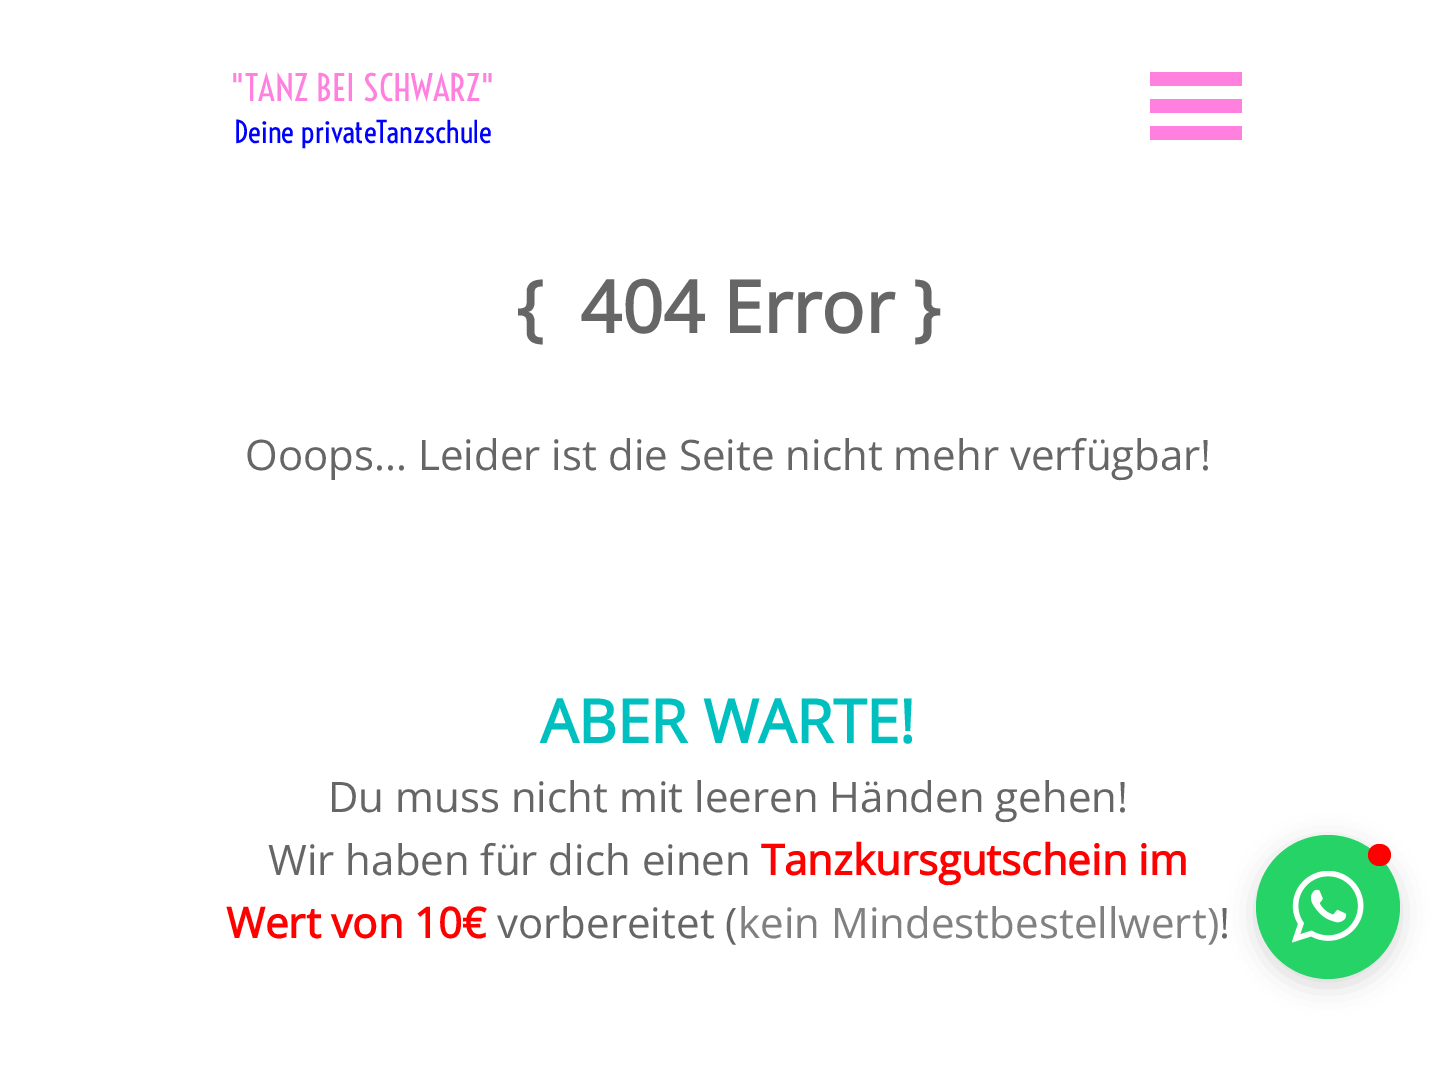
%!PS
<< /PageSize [1454 1090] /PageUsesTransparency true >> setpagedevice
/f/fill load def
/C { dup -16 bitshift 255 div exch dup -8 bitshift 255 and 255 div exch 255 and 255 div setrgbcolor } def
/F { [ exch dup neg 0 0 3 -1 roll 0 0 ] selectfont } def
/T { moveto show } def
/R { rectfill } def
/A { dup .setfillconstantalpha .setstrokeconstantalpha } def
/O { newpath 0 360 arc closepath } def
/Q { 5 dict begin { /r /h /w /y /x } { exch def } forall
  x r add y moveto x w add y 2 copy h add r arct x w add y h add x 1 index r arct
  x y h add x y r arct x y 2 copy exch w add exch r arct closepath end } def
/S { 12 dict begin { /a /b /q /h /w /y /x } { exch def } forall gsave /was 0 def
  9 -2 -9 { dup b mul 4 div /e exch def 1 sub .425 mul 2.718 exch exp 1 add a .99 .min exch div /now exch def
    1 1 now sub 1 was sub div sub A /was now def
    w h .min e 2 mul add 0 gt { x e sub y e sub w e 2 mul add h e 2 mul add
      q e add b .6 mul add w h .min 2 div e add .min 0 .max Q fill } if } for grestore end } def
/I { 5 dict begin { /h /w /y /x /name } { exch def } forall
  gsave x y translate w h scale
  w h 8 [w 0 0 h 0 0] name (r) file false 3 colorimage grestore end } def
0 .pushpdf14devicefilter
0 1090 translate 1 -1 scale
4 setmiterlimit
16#FFFFFF C
0 0 1454 1090 R
/Voltaire-Regular 36 F
16#FF80DF C
("TANZ BEI SCHWARZ") 230 101 T
/Voltaire-Regular 30 F
16#0000FF C
(Deine privateTanzschule) 234 143 T
16#FF80DF C
1150 72 92 14 R
1150 99 92 14 R
1150 126 92 14 R
/OpenSans-Bold 72 F
16#666666 C
({  404 Error }) 516 333 T
/OpenSans-Regular 42 F
(Ooops... Leider ist die Seite nicht mehr verfügbar!) 245 470 T
/OpenSans-Bold 60 F
16#00BFBF C
(ABER WARTE!) 540 743 T
/OpenSans-Regular 42 F
16#666666 C
(Du muss nicht mit leeren Händen gehen!) 328 812 T
(Wir haben für dich einen) 268 875 T
/OpenSans-Bold 42 F
16#FF0000 C
(Tanzkursgutschein im) 761 875 T
(Wert von 10€) 226 938 T
/OpenSans-Regular 42 F
16#666666 C
(vorbereitet \() 497 938 T
16#000000 C
1256 842 144 144 72 13.5 .15 S
16#808080 C
(kein Mindestbestellwert\)) 738 938 T
16#666666 C
(!) 1219 938 T
16#25D366 C
1328 907 72 O f
16#FF0000 C
1368 844 23 22 11 Q f
(1.rgb) 1292 871 72 72 I
.poppdf14devicefilter showpage
